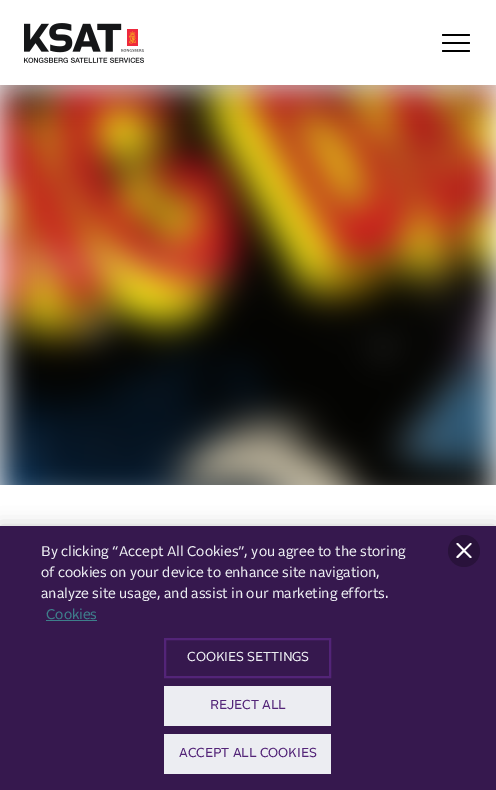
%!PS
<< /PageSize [496 790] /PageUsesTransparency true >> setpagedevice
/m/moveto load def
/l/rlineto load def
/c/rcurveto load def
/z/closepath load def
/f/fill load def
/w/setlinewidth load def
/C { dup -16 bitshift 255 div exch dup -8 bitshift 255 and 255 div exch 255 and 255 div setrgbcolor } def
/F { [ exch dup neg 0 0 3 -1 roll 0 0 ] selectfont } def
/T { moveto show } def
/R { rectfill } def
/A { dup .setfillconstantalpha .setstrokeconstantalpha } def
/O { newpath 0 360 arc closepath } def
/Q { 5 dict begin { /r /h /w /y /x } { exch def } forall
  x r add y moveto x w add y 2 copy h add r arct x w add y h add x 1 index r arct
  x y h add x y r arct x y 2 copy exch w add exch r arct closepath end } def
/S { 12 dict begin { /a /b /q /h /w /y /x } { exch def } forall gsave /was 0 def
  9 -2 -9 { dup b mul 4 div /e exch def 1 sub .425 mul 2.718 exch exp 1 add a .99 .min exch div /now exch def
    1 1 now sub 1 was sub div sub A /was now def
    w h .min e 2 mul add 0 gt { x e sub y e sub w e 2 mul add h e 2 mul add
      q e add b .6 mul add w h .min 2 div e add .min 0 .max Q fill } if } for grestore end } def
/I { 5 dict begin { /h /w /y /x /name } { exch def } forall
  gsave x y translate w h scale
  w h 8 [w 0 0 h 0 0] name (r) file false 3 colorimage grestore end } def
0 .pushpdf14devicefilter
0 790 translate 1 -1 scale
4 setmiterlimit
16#FFFFFF C
0 0 496 790 R
(2.rgb) 0 85 496 400 I
16#000000 C
0 4 496 85 0 5 .09 S
16#FFFFFF C
0 0 496 85 R
(1.rgb) 24 23 120 40 I
16#000000 C
442 42 28 2 1 Q f
442 34 28 2 1 Q f
442 50 28 2 1 Q f
0 526 496 264 0 9 .2 S
16#36184E C
0 526 496 264 R
/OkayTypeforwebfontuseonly-Regular 14 F
16#ECEDF2 C
(By clicking “Accept All Cookies”, you agree to the storing) 41 556 T
(of cookies on your device to enhance site navigation,) 41 577 T
(analyze site usage, and assist in our marketing efforts.) 41 598 T
16#3E7E8B C
(Cookies) 46 619 T
46 620 51 1 R
16#532478 C
2 w
165 639 165 38 rectstroke
/OkayTypeforwebfontuseonly-Regular 13 F
16#ECEDF2 C
(COOKIES SETTINGS) 187 661 T
164 686 167 40 R
16#532478 C
(REJECT ALL) 210 709 T
16#ECEDF2 C
164 734 167 40 R
16#532478 C
(ACCEPT ALL COOKIES) 179 757 T
16#29123B C
464 551 16 O f
16#FFFFFF C
471.5 543 m 0 1 l -13.5 14 l -.5 0 -1 0 -1.5 0 c 0 -.5 0 -1 0 -1.5 c 14 -13.5 l z f
456.5 543 m .5 0 1 0 1.5 0 c 13.5 14 l 0 1 l -.5 0 -1 0 -1.5 0 c -13.5 -14 l z f
.poppdf14devicefilter showpage
